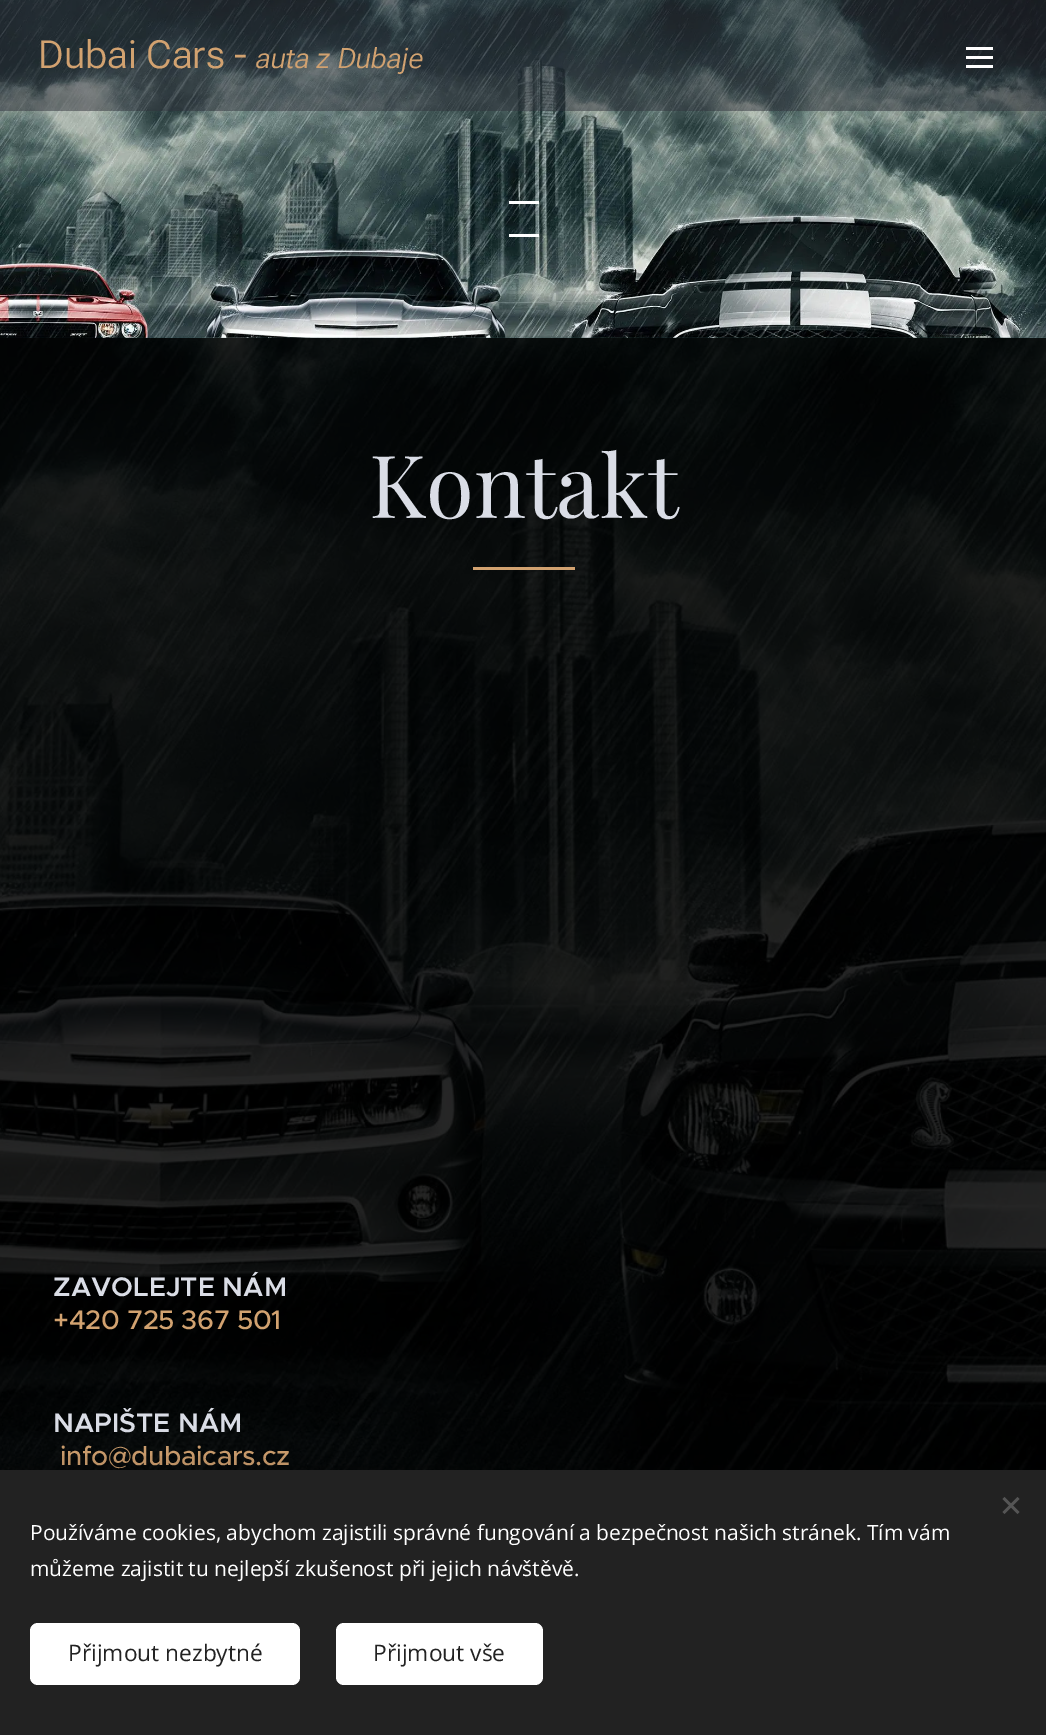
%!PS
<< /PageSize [1046 1735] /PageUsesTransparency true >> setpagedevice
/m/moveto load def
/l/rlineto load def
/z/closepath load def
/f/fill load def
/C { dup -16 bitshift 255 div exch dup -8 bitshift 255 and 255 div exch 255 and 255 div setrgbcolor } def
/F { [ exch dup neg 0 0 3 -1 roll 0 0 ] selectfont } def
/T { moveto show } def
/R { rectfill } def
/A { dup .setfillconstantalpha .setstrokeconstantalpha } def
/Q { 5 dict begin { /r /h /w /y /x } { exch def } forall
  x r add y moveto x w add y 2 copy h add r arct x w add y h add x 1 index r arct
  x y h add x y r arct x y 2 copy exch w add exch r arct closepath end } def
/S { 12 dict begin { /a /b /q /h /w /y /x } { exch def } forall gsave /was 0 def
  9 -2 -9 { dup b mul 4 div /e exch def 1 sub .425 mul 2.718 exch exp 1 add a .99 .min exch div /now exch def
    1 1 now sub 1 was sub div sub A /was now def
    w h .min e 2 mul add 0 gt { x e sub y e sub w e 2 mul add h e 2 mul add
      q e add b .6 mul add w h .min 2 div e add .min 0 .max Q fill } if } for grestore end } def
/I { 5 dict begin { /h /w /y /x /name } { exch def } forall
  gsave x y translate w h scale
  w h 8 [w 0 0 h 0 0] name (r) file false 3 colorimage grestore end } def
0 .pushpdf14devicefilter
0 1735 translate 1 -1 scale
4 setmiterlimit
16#FFFFFF C
0 0 1046 1735 R
(1.rgb) 0 0 1046 338 I
0.5 A
16#30323B C
0 0 1046 111 R
/RobotoFlex-Light 38.75 F
1 A
16#D2A270 C
(Dubai Cars -) 38 68 T
/RobotoFlex-LightItalic 28 F
(auta z Dubaje) 256 68 T
16#FFFFFF C
966 56 27 3 R
966 47 27 3 R
966 65 27 3 R
509 201 30 3 R
509 234 30 3 R
(2.rgb) 0 337 1046 1133 I
0.85 A
16#000000 C
0 338 1046 1132 R
/PlayfairDisplay-Regular 87 F
1 A
16#DADDE6 C
(Kontakt) 369 518 T
16#D2A270 C
473 567 102 3 R
/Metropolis-SemiBold 27 F
16#DADDE6 C
(ZAVOLEJTE NÁM) 53 1296 T
/Metropolis-Medium 27 F
16#D2A270 C
53 1329 m -.4 0 (+420 725 367 501) ashow
/Metropolis-SemiBold 27 F
16#DADDE6 C
(NAPIŠTE NÁM) 53 1432 T
/Metropolis-Medium 27 F
16#D2A270 C
60 1465 m -.4 0 (info@dubaicars.cz) ashow
16#000000 C
0 1470 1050 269 0 19 .33 S
16#222222 C
0 1470 1046 265 R
16#555555 C
1002.5 1512 m 15 -15 l 2 2 l -15 15 l z f
1004.5 1497 m 15 15 l -2 2 l -15 -15 l z f
/OpenSans-Regular 21 F
16#FFFFFF C
(Používáme cookies, abychom zajistili správné fungování a bezpečnost našich stránek. Tím vám) 30 1540 T
(můžeme zajistit tu nejlepší zkušenost při jejich návštěvě.) 30 1576 T
30 1623 270 62 8 Q f
/OpenSans-Regular 22.75 F
16#222222 C
(Přijmout nezbytné) 68 1661 T
16#FFFFFF C
336 1623 207 62 8 Q f
16#222222 C
(Přijmout vše) 373 1661 T
.poppdf14devicefilter showpage
